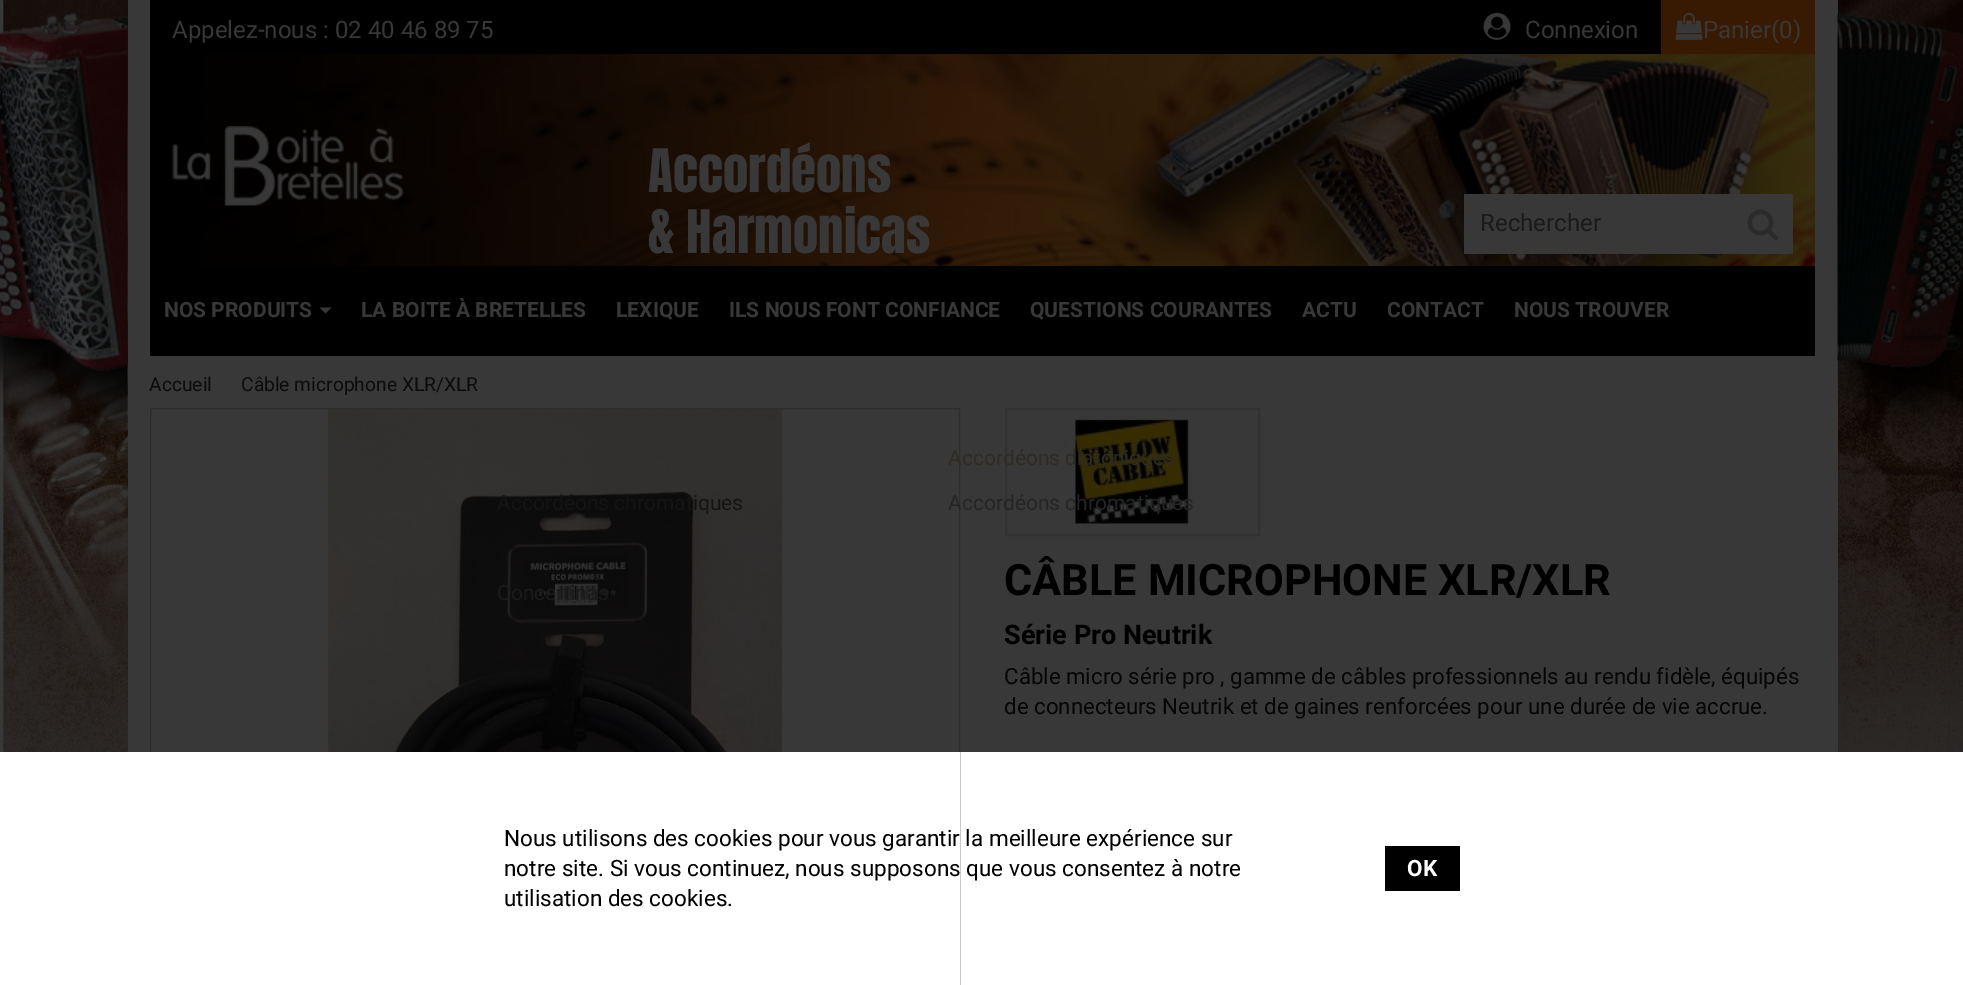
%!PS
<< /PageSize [1963 985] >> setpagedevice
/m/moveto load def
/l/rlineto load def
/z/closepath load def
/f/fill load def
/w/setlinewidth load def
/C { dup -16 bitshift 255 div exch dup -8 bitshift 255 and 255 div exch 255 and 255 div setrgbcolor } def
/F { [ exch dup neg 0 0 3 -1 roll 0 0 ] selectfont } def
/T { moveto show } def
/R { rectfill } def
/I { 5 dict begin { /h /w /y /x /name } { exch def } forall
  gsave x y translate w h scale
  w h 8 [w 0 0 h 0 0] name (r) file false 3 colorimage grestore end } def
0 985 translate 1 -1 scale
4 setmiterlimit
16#FFFFFF C
0 0 1963 985 R
(1.rgb) 0 0 1963 752 I
(2.rgb) 0 6 128 448 I
(3.rgb) 150 54 1665 212 I
16#383838 C
1815 0 23 356 R
128 0 22 356 R
16#000000 C
150 0 1511 54 R
/Roboto-Regular 24 F
16#383838 C
(Appelez-nous : 02 40 46 89 75) 172 38 T
(4.rgb) 1483 12 28 28 I
(Connexion) 1525 38 T
16#381902 C
1661 0 154 54 R
(5.rgb) 1675 12 28 28 I
16#383838 C
(Panier\(0\)) 1703 38 T
(6.rgb) 172 126 232 80 I
/Anton-Regular 51 F
(Accordéons) 648 192 T
(& Harmonicas) 648 253 T
1464 194 329 60 R
/Roboto-Regular 24 F
16#1A1A1A C
(Rechercher) 1480 231 T
(7.rgb) 1747 209 32 32 I
16#000000 C
150 266 1665 90 R
/Roboto-Bold 21 F
16#383838 C
(LA BOITE À BRETELLES) 361 317 T
(NOS PRODUITS) 164 317 T
319.5 307.5 m 12 0 l -6 6 l z f
128 356 1710 396 R
16#2D2D2D C
2 w
151 409 808 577 rectstroke
16#383838 C
958 410 1 342 R
(8.rgb) 151 409 808 343 I
16#313131 C
1006 409 253 126 rectstroke
(9.rgb) 1060 415 142 109 I
/Roboto-Regular 21 F
16#2E2C22 C
(Accordéons diatoniques) 948 465 T
16#252525 C
(Accordéons chromatiques) 948 510 T
16#151414 C
(Accordéons chromatiques) 497 510 T
16#1A1A1A C
(Concertinas) 497 600 T
/Roboto-Bold 21 F
16#383838 C
(LEXIQUE) 616 317 T
(ILS NOUS FONT CONFIANCE) 729 317 T
(QUESTIONS COURANTES) 1030 317 T
(ACTU) 1302 317 T
(CONTACT) 1387 317 T
(NOUS TROUVER) 1514 317 T
/Roboto-Regular 19.25 F
16#0C0C0C C
(Accueil) 149 391 T
(Câble microphone XLR/XLR) 241 391 T
/Roboto-Bold 43.25 F
16#000000 C
(CÂBLE MICROPHONE XLR/XLR) 1004 595 T
/Roboto-Bold 27 F
(Série Pro Neutrik) 1004 644 T
/Roboto-Regular 22.3 F
16#060606 C
(Câble micro série pro , gamme de câbles professionnels au rendu fidèle, équipés) 1004 684 T
(de connecteurs Neutrik et de gaines renforcées pour une durée de vie accrue.) 1004 714 T
(10.rgb) 1837 11 126 440 I
16#FFFFFF C
150 752 810 233 R
/Roboto-Regular 22.5 F
16#000000 C
(Nous utilisons des cookies pour vous garantir la meilleure expérience sur) 504 846 T
(notre site. Si vous continuez, nous supposons que vous consentez à notre) 504 876 T
(utilisation des cookies.) 504 906 T
1385 846 75 45 R
/Roboto-Bold 22.5 F
16#FFFFFF C
(OK) 1407 876 T
showpage
